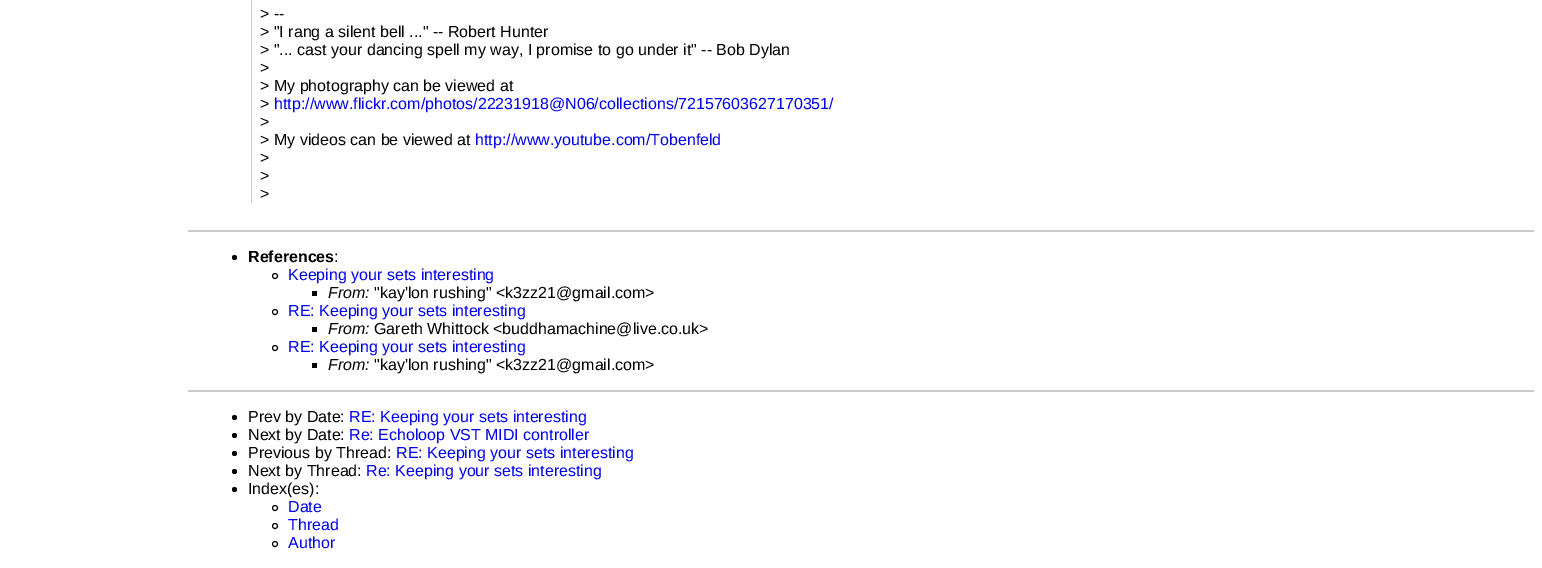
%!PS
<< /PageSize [1542 568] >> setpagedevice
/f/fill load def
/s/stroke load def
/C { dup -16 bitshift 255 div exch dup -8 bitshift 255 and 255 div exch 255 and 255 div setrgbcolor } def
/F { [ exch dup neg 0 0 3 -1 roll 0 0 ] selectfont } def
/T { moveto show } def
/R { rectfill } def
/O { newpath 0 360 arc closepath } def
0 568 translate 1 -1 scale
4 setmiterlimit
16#FFFFFF C
0 0 1542 568 R
16#CCCCCC C
251 0 1 203 R
/LiberationSans-Regular 16 F
16#000000 C
(> --) 260 19 T
(> "I rang a silent bell ..." -- Robert Hunter) 260 37 T
(> "... cast your dancing spell my way, I promise to go under it" -- Bob Dylan) 260 55 T
(>) 260 73 T
(> My photography can be viewed at) 260 91 T
(>) 260 109 T
16#0000EE C
(http://www.flickr.com/photos/22231918@N06/collections/72157603627170351/) 274 109 T
16#000000 C
(>) 260 127 T
(> My videos can be viewed at) 260 145 T
16#0000EE C
(http://www.youtube.com/Tobenfeld) 475 145 T
16#000000 C
(>) 260 163 T
(>) 260 181 T
(>) 260 199 T
16#CCCCCC C
188 230 1346 2 R
16#000000 C
234.5 257.5 2.5 O f
/LiberationSans-Bold 16 F
(References) 248 262 T
/LiberationSans-Regular 16 F
(:) 334 262 T
275 276 2.5 O s
16#0000EE C
(Keeping your sets interesting) 288 280 T
16#000000 C
312 291 5 5 R
/LiberationSans-Italic 16 F
(From:) 328 298 T
/LiberationSans-Regular 16 F
("kay'lon rushing" <k3zz21@gmail.com>) 374 298 T
275 312 2.5 O s
16#0000EE C
(RE: Keeping your sets interesting) 288 316 T
16#000000 C
312 327 5 5 R
/LiberationSans-Italic 16 F
(From:) 328 334 T
/LiberationSans-Regular 16 F
(Gareth Whittock <buddhamachine@live.co.uk>) 374 334 T
275 348 2.5 O s
16#0000EE C
(RE: Keeping your sets interesting) 288 352 T
16#000000 C
312 363 5 5 R
/LiberationSans-Italic 16 F
(From:) 328 370 T
/LiberationSans-Regular 16 F
("kay'lon rushing" <k3zz21@gmail.com>) 374 370 T
16#CCCCCC C
188 390 1346 2 R
16#000000 C
234.5 417.5 2.5 O f
(Prev by Date:) 248 422 T
16#0000EE C
(RE: Keeping your sets interesting) 349 422 T
16#000000 C
234.5 435.5 2.5 O f
(Next by Date:) 248 440 T
16#0000EE C
(Re: Echoloop VST MIDI controller) 349 440 T
16#000000 C
234.5 453.5 2.5 O f
(Previous by Thread:) 248 458 T
16#0000EE C
(RE: Keeping your sets interesting) 396 458 T
16#000000 C
234.5 471.5 2.5 O f
(Next by Thread:) 248 476 T
16#0000EE C
(Re: Keeping your sets interesting) 366 476 T
16#000000 C
234.5 489.5 2.5 O f
(Index\(es\):) 248 494 T
275 508 2.5 O s
16#0000EE C
(Date) 288 512 T
16#000000 C
275 526 2.5 O s
16#0000EE C
(Thread) 288 530 T
16#000000 C
275 544 2.5 O s
16#0000EE C
(Author) 288 548 T
showpage
